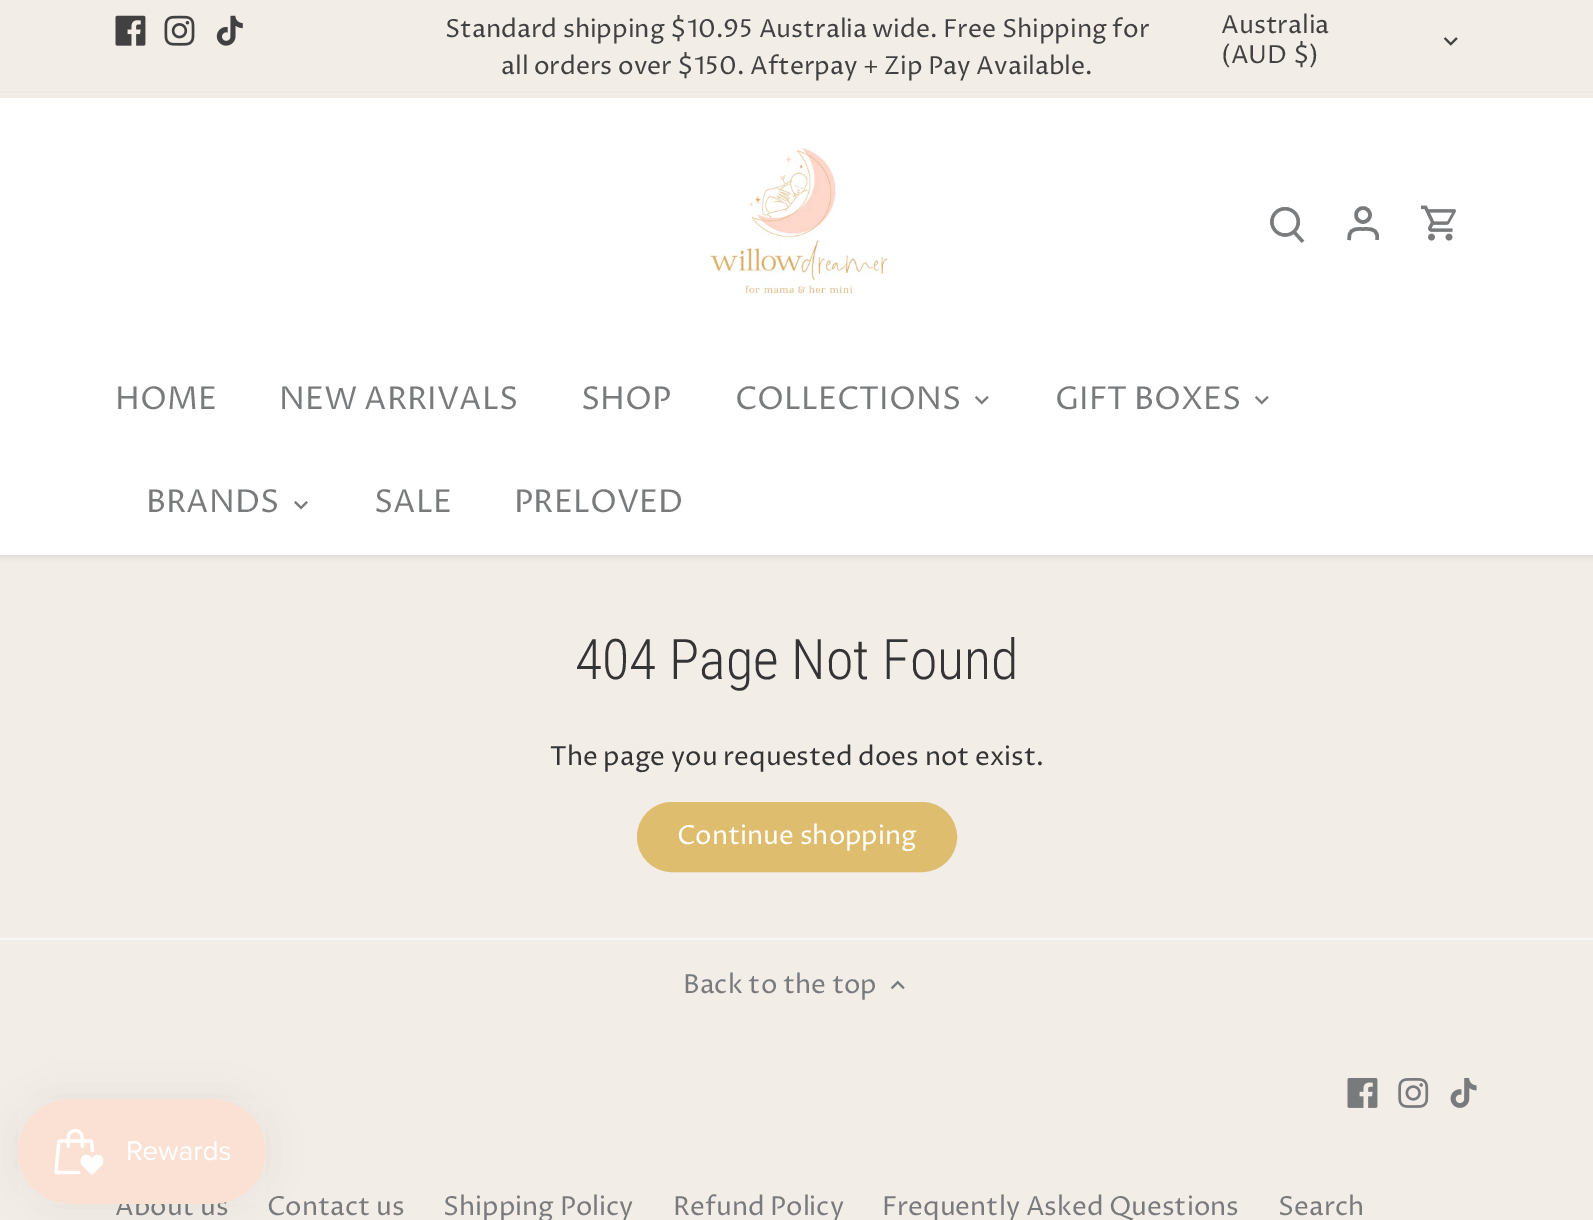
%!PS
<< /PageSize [1593 1220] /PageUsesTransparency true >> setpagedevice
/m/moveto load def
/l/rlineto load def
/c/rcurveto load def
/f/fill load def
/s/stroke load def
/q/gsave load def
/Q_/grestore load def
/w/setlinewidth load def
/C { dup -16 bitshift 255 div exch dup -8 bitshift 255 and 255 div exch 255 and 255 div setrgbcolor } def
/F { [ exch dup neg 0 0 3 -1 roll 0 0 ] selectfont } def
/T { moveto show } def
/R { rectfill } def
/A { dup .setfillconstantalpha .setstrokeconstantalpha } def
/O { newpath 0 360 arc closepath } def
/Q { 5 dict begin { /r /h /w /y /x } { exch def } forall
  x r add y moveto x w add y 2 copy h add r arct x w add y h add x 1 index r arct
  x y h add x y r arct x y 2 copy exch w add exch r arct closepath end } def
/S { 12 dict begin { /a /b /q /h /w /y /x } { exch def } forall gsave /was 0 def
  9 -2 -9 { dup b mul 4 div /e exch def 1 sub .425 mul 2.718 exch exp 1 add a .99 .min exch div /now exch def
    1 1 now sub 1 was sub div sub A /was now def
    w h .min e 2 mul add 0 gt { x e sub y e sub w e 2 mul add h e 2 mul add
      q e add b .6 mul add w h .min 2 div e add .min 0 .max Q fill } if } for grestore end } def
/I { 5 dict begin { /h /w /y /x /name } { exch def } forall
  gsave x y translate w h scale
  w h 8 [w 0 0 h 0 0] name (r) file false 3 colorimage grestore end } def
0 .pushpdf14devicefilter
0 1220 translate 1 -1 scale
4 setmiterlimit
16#F3EDE8 C
0 0 1593 1220 R
16#000000 C
-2 96 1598 461 0 2.5 .08 S
16#F3EDE8 C
0 93 1593 5 R
(1.rgb) 115 15 31 31 I
(2.rgb) 164 15 31 31 I
(3.rgb) 216 15 27 31 I
/ProzaLibre-Regular 24.95 F
16#414141 C
(Standard shipping $10.95 Australia wide. Free Shipping for) 445 37 T
(all orders over $150. Afterpay + Zip Pay Available.) 501 74 T
(Australia) 1221 33 T
(\(AUD $\)) 1221 63 T
(4.rgb) 1443 37 15 9 I
16#FFFFFF C
0 98 1593 457 R
(5.rgb) 710 144 180 153 I
(6.rgb) 1270 207 35 36 I
16#787A7C C
3.5 w
1363 215 7 O s
1377 240 m 0 -5 l -1.5 -7 -8.5 -6 -14 -6 c -5 0 -12 -1 -13.5 6 c -.5 5 l s
(7.rgb) 1421 205 35 36 I
/ProzaLibre-Regular 31.5 F
(HOME) 115 409 T
(NEW ARRIVALS) 279 409 T
(SHOP) 581 409 T
(COLLECTIONS) 735 409 T
(8.rgb) 974 396 15 9 I
(GIFT BOXES) 1055 409 T
(8.rgb) 1254 396 15 9 I
(BRANDS) 146 512 T
(9.rgb) 294 501 14 9 I
(SALE) 374 512 T
(PRELOVED) 514 512 T
/RobotoCondensed-Light 56 F
16#343434 C
(404 Page Not Found) 575 679 T
/ProzaLibre-Regular 26.25 F
(The page you requested does not exist.) 550 765 T
16#DEBD6F C
639 804 316 66 33 Q q f Q_
4 w
s
16#FFFFFF C
(Continue shopping) 677 844 T
16#F5F5F5 C
0 938 1593 2 R
16#787A7C C
(Back to the top) 683 993 T
(10.rgb) 890 980 15 10 I
(11.rgb) 1347 1078 31 30 I
(12.rgb) 1398 1078 31 30 I
(13.rgb) 1450 1078 27 30 I
(About us) 115 1215 T
(Contact us) 267 1215 T
(Shipping Policy) 443 1215 T
(Refund Policy) 673 1215 T
(Frequently Asked Questions) 882 1215 T
(Search) 1278 1215 T
16#000000 C
18 1099 248 105 52.5 22 .05 S
(14.rgb) 18 1099 248 105 I
.poppdf14devicefilter showpage
